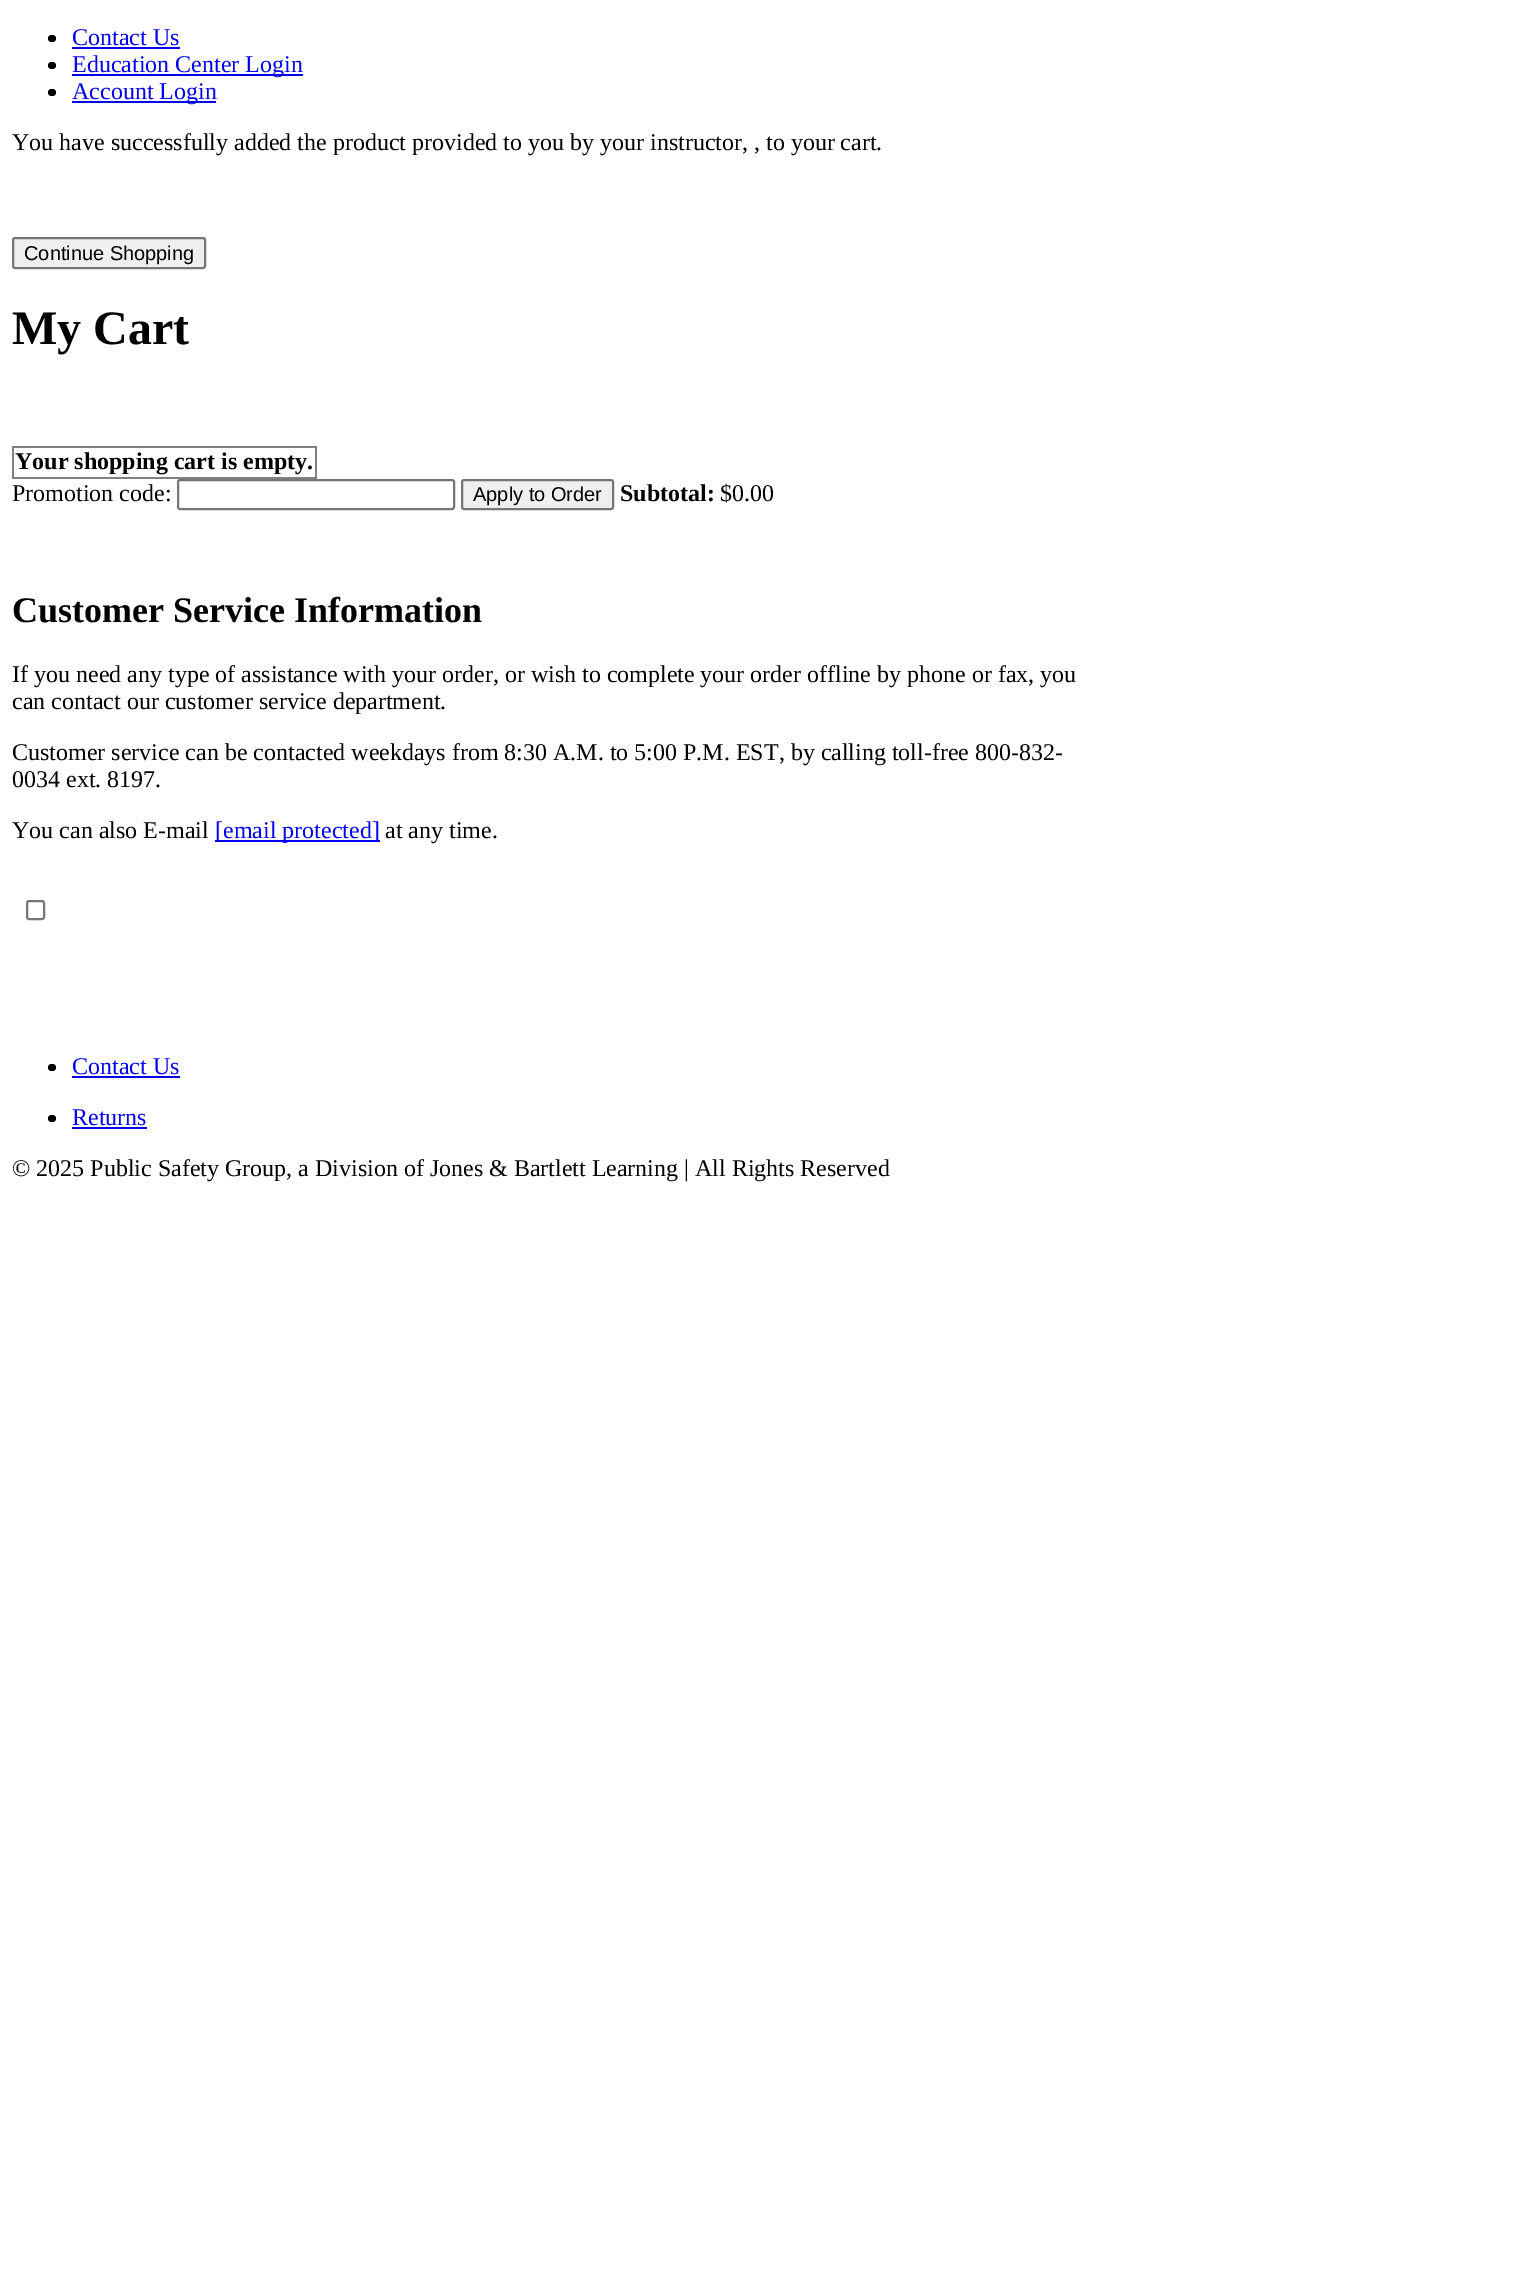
%!PS
<< /PageSize [1534 2290] >> setpagedevice
/f/fill load def
/s/stroke load def
/q/gsave load def
/Q_/grestore load def
/w/setlinewidth load def
/C { dup -16 bitshift 255 div exch dup -8 bitshift 255 and 255 div exch 255 and 255 div setrgbcolor } def
/F { [ exch dup neg 0 0 3 -1 roll 0 0 ] selectfont } def
/T { moveto show } def
/R { rectfill } def
/Q { 5 dict begin { /r /h /w /y /x } { exch def } forall
  x r add y moveto x w add y 2 copy h add r arct x w add y h add x 1 index r arct
  x y h add x y r arct x y 2 copy exch w add exch r arct closepath end } def
0 2290 translate 1 -1 scale
4 setmiterlimit
16#FFFFFF C
0 0 1534 2290 R
16#000000 C
48 35 8 7 3.5 Q f
/LiberationSerif-Regular 24 F
16#0000EE C
(Contact Us) 72 45 T
72 47 108 2 R
16#000000 C
48 62 8 7 3.5 Q f
16#0000EE C
72 74 231 2 R
(Education Center Login) 72 72 T
16#000000 C
48 89 8 7 3.5 Q f
16#0000EE C
72 101 144 2 R
(Account Login) 72 99 T
16#000000 C
(You have successfully added the product provided to you by your instructor, , to your cart.) 12 150 T
16#EFEFEF C
13 238 192 30 2 Q q f Q_
16#767676 C
2 w
s
/LiberationSans-Regular 20 F
16#000000 C
(Continue Shopping) 24 260 T
/LiberationSerif-Bold 48 F
(My Cart) 12 344 T
16#808080 C
12 446 305 2 R
315 446 2 33 R
12 477 305 2 R
12 446 2 33 R
/LiberationSerif-Bold 24 F
16#000000 C
(Your shopping cart is empty.) 15 469 T
/LiberationSerif-Regular 24 F
(Promotion code:) 12 501 T
16#767676 C
178 480 276 29 2 Q s
16#EFEFEF C
462 480 151 29 2 Q q f Q_
16#767676 C
s
/LiberationSans-Regular 20 F
16#000000 C
(Apply to Order) 473 501 T
/LiberationSerif-Bold 24 F
(Subtotal:) 620 501 T
/LiberationSerif-Regular 24 F
($0.00) 720 501 T
/LiberationSerif-Bold 36 F
(Customer Service Information) 12 622 T
/LiberationSerif-Regular 24 F
(If you need any type of assistance with your order, or wish to complete your order offline by phone or fax, you) 12 682 T
(can contact our customer service department.) 12 709 T
(Customer service can be contacted weekdays from 8:30 A.M. to 5:00 P.M. EST, by calling toll-free 800-832-) 12 760 T
(0034 ext. 8197.) 12 787 T
(You can also E-mail) 12 838 T
16#0000EE C
215 840 165 2 R
([email protected]) 215 838 T
16#000000 C
(at any time.) 385 838 T
16#767676 C
27 901 17 18 2 Q s
16#000000 C
48 1064 8 7 3.5 Q f
16#0000EE C
(Contact Us) 72 1074 T
72 1076 108 2 R
16#000000 C
48 1115 8 7 3.5 Q f
16#0000EE C
(Returns) 72 1125 T
72 1127 75 2 R
16#000000 C
(© 2025 Public Safety Group, a Division of Jones & Bartlett Learning | All Rights Reserved) 12 1176 T
showpage
